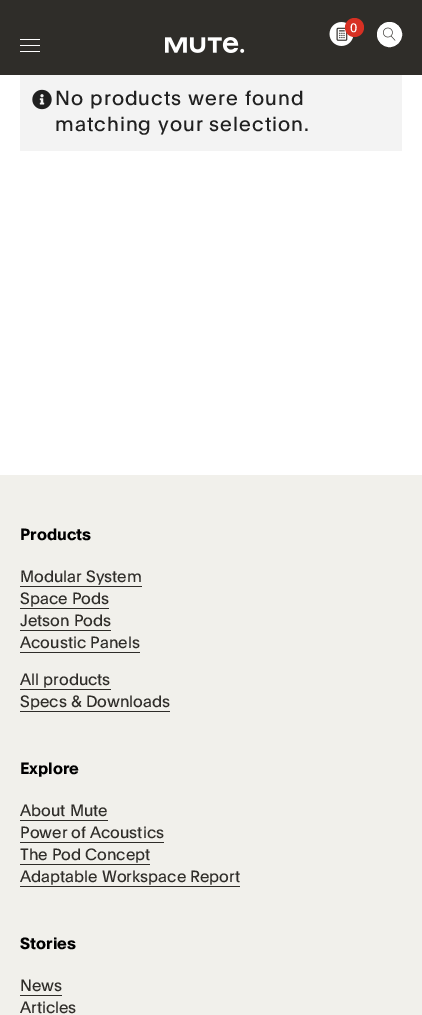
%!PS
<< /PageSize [422 1015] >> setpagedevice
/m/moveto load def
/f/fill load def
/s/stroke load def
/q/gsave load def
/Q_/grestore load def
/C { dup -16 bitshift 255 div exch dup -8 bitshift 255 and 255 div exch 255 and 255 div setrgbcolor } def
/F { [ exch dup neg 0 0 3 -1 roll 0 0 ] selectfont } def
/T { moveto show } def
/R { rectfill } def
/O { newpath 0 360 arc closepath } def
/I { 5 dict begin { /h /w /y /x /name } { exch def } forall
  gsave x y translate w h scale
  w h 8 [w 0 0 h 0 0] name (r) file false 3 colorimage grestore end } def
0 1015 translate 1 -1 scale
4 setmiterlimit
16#FFFFFF C
0 0 422 1015 R
16#2F2D29 C
0 0 422 75 R
(1.rgb) 329 22 25 24 I
16#D73023 C
354.5 27.5 9.5 O f
/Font-Regular 12 F
16#FFFFFF C
350 32 m 1 0 (0) ashow
389.5 34.5 12 O q f Q_
s
(2.rgb) 383 27 13 14 I
20 39 20 1 R
20 45 20 1 R
20 51 20 1 R
(3.rgb) 165 37 80 16 I
16#F3F3F3 C
20 75 382 76 R
(4.rgb) 32 89 20 21 I
/Font-Regular 20 F
16#202020 C
55 105 m 1 0 (No products were found) ashow
55 131 m 1 0 (matching your selection.) ashow
16#F1F0EB C
0 475 422 540 R
/Font-Bold 16 F
16#000000 C
(Products) 20 540 T
/Font-Regular 16 F
16#2F2D29 C
(Modular System) 20 582 T
20 586 122 1 R
(Space Pods) 20 604 T
20 608 89 1 R
(Jetson Pods) 20 626 T
20 630 91 1 R
(Acoustic Panels) 20 648 T
20 652 120 1 R
(All products) 20 685 T
20 689 91 1 R
(Specs & Downloads) 20 707 T
20 711 150 1 R
/Font-Bold 16 F
16#000000 C
(Explore) 20 774 T
/Font-Regular 16 F
16#2F2D29 C
(About Mute) 20 816 T
20 820 88 1 R
(Power of Acoustics) 20 838 T
20 842 144 1 R
(The Pod Concept) 20 860 T
20 864 130 1 R
(Adaptable Workspace Report) 20 882 T
20 886 220 1 R
/Font-Bold 16 F
16#000000 C
(Stories) 20 949 T
/Font-Regular 16 F
16#2F2D29 C
(News) 20 991 T
20 995 42 1 R
(Articles) 20 1013 T
showpage
